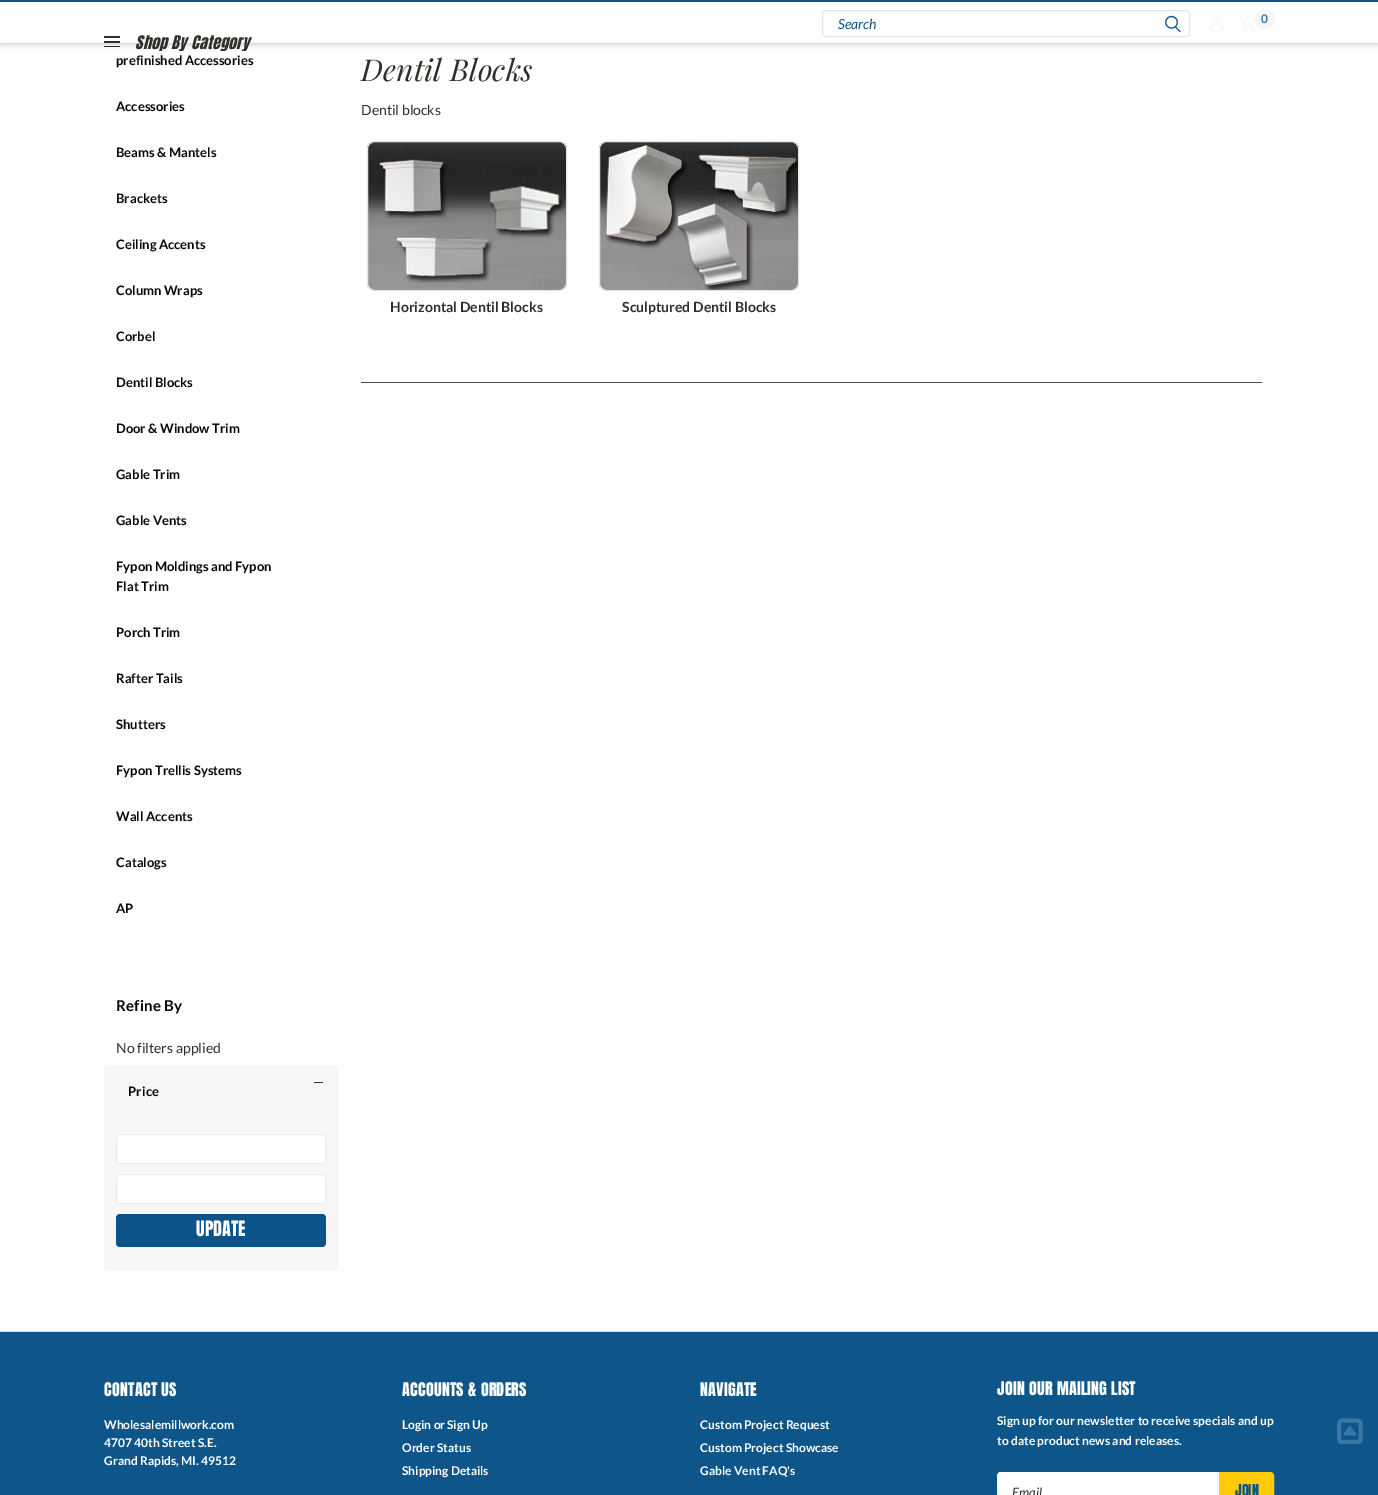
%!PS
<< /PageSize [1378 1495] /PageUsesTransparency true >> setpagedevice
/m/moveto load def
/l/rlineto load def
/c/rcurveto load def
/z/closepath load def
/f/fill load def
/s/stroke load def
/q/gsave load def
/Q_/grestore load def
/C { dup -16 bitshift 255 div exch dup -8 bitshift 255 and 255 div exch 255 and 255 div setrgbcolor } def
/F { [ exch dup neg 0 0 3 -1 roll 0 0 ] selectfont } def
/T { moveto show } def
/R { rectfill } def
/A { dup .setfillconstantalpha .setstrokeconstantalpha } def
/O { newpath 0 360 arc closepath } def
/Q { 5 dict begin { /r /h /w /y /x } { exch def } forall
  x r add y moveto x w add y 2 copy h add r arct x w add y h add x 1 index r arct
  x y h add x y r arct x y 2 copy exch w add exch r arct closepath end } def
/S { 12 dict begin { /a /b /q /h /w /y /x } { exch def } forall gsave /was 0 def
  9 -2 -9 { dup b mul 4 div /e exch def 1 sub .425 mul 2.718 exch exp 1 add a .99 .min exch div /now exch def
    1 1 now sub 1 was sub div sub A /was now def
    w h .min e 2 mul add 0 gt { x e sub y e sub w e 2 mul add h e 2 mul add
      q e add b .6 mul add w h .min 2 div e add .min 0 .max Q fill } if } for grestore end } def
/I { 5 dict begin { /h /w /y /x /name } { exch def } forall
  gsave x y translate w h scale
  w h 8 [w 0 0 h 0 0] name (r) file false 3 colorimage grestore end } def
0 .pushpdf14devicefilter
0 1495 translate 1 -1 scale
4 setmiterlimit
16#FFFFFF C
0 0 1378 1495 R
16#000000 C
0 0 1378 43 0 3.5 .3 S
16#FFFFFF C
0 2 1378 41 R
16#0C538A C
0 0 1378 2 R
16#E5E5E5 C
822.5 10.5 367 26 3.5 Q s
/Lato-Italic 14 F
16#0E5589 C
(Search) 838 29 T
(1.rgb) 1165 15 16 18 I
(2.rgb) 1209 14 15 18 I
(3.rgb) 1238 15 17 17 I
16#F5F5F5 C
1265 19 10 O f
/Lato-Bold 12 F
16#3877A6 C
(0) 1261 23 T
16#2F2F2B C
104 36 16 2 R
104 41 16 2 R
104 46 16 1 R
/Anton-Italic 16 F
135 49 m .25 0 (Shop By Category) ashow
/Lato-Bold 13 F
16#050708 C
(prefinished Accessories) 116 65 T
(Accessories) 116 111 T
(Beams & Mantels) 116 157 T
(Brackets) 116 203 T
(Ceiling Accents) 116 249 T
(Column Wraps) 116 295 T
(Corbel) 116 341 T
(Dentil Blocks) 116 387 T
(Door & Window Trim) 116 433 T
(Gable Trim) 116 479 T
(Gable Vents) 116 525 T
(Fypon Moldings and Fypon) 116 571 T
(Flat Trim) 116 591 T
(Porch Trim) 116 637 T
(Rafter Tails) 116 683 T
(Shutters) 116 729 T
(Fypon Trellis Systems) 116 775 T
(Wall Accents) 116 821 T
(Catalogs) 116 867 T
(AP) 116 913 T
/Lato-Bold 15 F
116 1011 m .25 0 (Refine By) ashow
/Lato-Regular 14 F
16#2F2F2B C
(No filters applied) 116 1053 T
16#F6F6F6 C
104 1065 234 206 4 Q f
16#2F2F2B C
314 1082 9 1 R
/Lato-Bold 13 F
16#050708 C
128 1096 m .25 0 (Price) ashow
16#FFFFFF C
116.5 1134.5 209 29 3.5 Q q f Q_
16#EBEBEB C
s
16#FFFFFF C
116.5 1174.5 209 29 3.5 Q q f Q_
16#EBEBEB C
s
16#0C538A C
116 1214 210 33 4 Q f
118 1246 206 1 R
/Anton-Regular 18 F
16#FFFFFF C
(UPDATE) 196 1236 T
/PlayfairDisplay-Italic 30 F
16#2F2F2B C
361 81 m .25 0 (Dentil Blocks) ashow
/Lato-Regular 14 F
(Dentil blocks) 361 115 T
16#3C4E5B C
361 382 901 1 R
(4.rgb) 367 142 200 148 I
16#E5E5E5 C
367.5 141.5 199 149 7.5 Q s
/Lato-Bold 14 F
16#2F2F2B C
(Horizontal Dentil Blocks) 390 312 T
(5.rgb) 599 142 200 148 I
16#E5E5E5 C
599.5 141.5 199 149 7.5 Q s
16#2F2F2B C
(Sculptured Dentil Blocks) 622 312 T
16#0E5589 C
0 1332 1378 163 R
16#E4E5D7 C
0 1331 1378 1 R
/Anton-Regular 16 F
16#FFFFFF C
104 1396 m .25 0 (CONTACT US) ashow
/Lato-Bold 12 F
(Wholesalemillwork.com) 104 1429 T
(4707 40th Street S.E.) 104 1447 T
(Grand Rapids, MI. 49512) 104 1465 T
/Anton-Regular 16 F
402 1396 m .25 0 (ACCOUNTS & ORDERS) ashow
/Lato-Bold 12 F
(Login or) 402 1429 T
(Sign Up) 447 1429 T
(Order Status) 402 1452 T
(Shipping Details) 402 1475 T
/Anton-Regular 16 F
700 1396 m .25 0 (NAVIGATE) ashow
/Lato-Bold 12 F
(Custom Project Request) 700 1429 T
(Custom Project Showcase) 700 1452 T
(Gable Vent FAQ's) 700 1475 T
/Anton-Regular 16 F
997 1395 m .25 0 (JOIN OUR MAILING LIST) ashow
/Lato-Bold 12 F
(Sign up for our newsletter to receive specials and up) 997 1425 T
(to date product news and releases.) 997 1445 T
1001 1472.5 m 217.5 0 l 0 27 l -217.5 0 l -2 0 -3.5 -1.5 -3.5 -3.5 c 0 -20 l 0 -2 1.5 -3.5 3.5 -3.5 c z q f Q_
s
/Lato-Italic 13 F
16#2F2F2B C
(Email) 1012 1497 T
16#FFCA07 C
1220 1473 m 50 0 l 2 0 3 1 3 3 c 0 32 l 0 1 -1 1 -3 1 c -50 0 l z f
1219.5 1472.5 m 50.5 0 l 2 0 3.5 1.5 3.5 3.5 c 0 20 l 0 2 -1.5 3.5 -3.5 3.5 c -50.5 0 l z s
/Anton-Regular 14 F
16#0E5589 C
(JOIN) 1235 1496 T
(6.rgb) 1337 1418 26 27 I
.poppdf14devicefilter showpage
